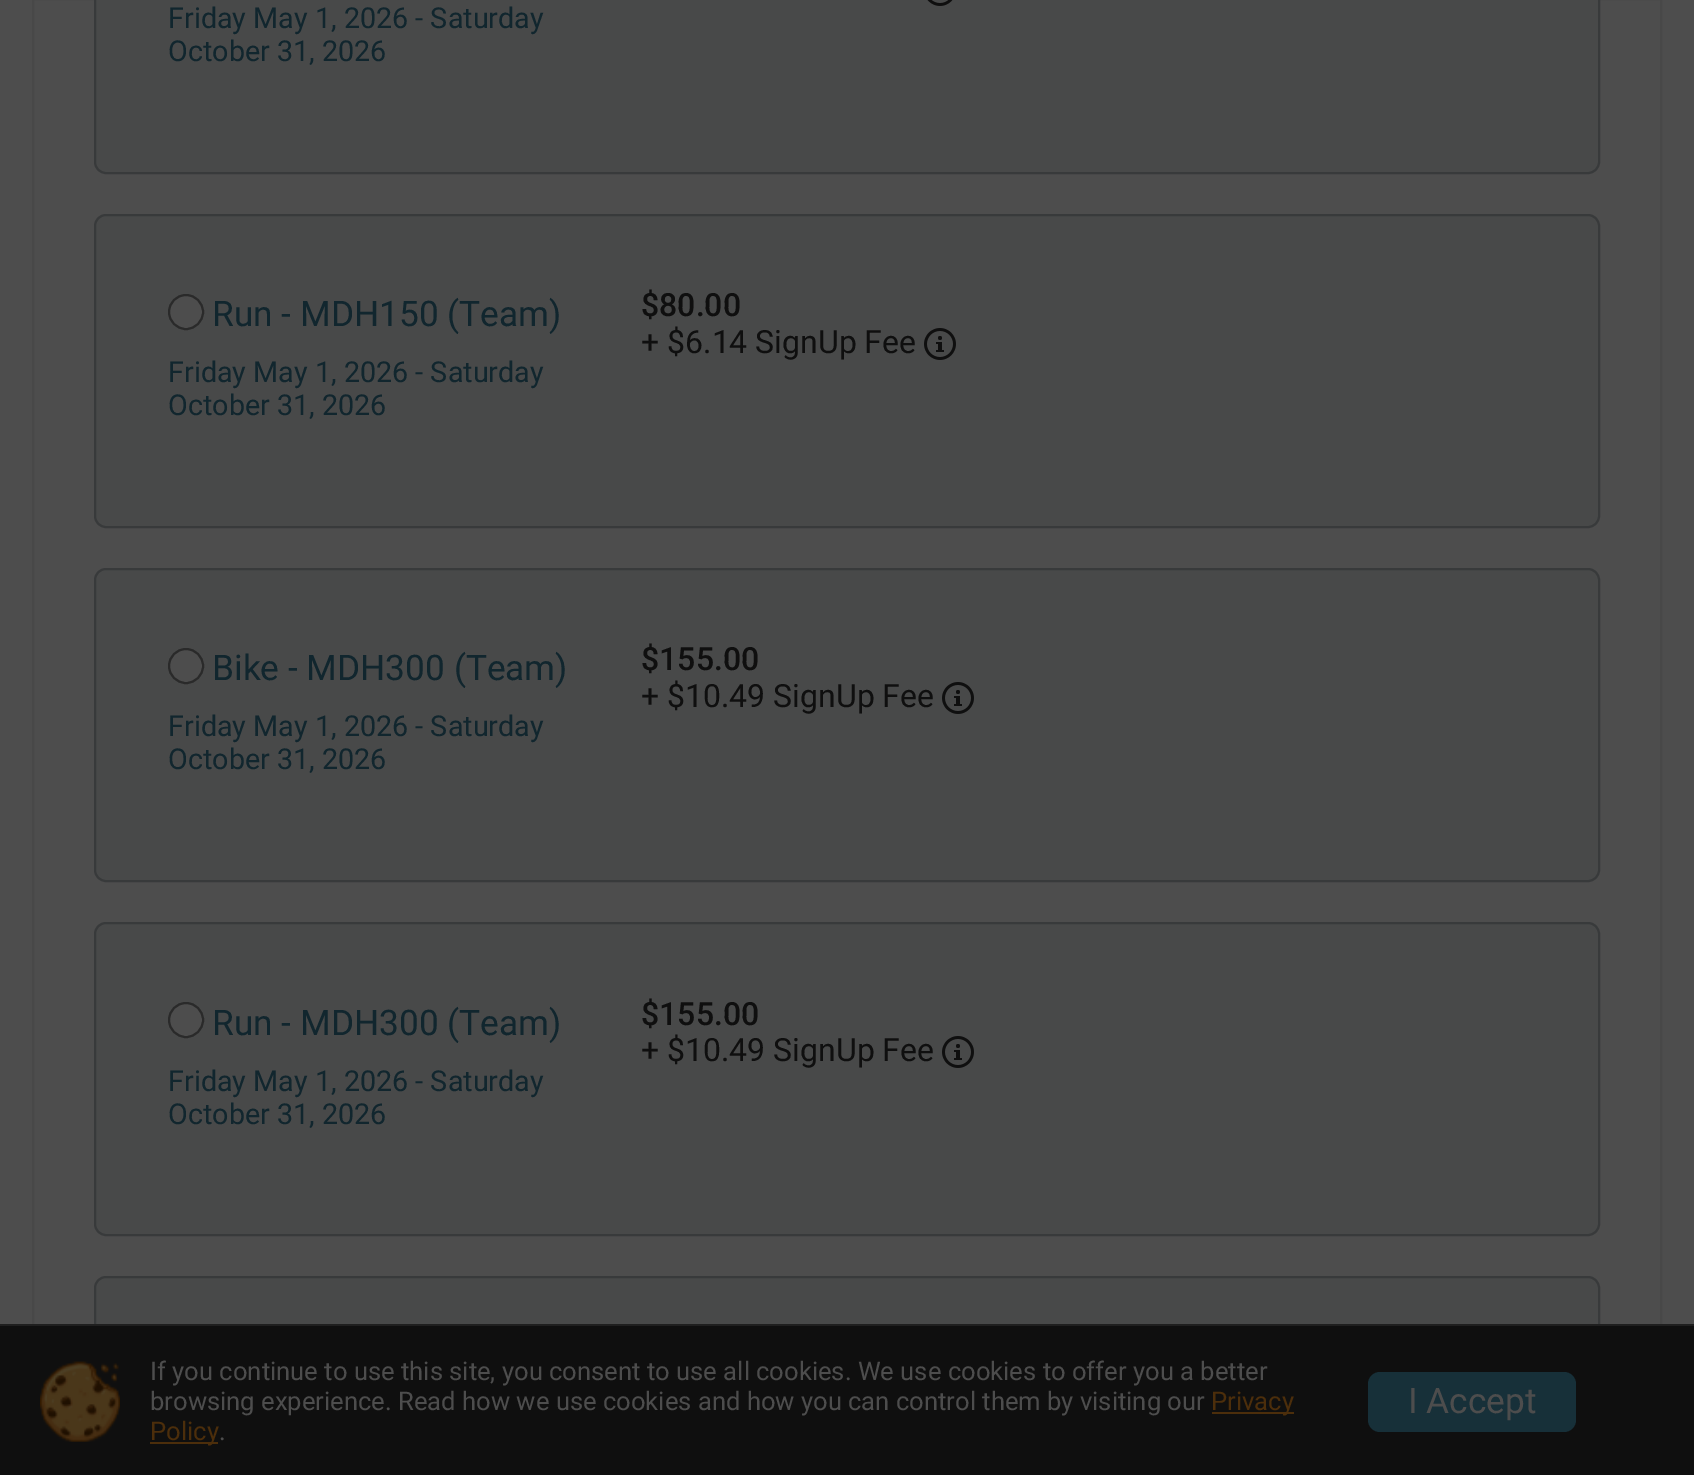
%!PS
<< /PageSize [1694 1475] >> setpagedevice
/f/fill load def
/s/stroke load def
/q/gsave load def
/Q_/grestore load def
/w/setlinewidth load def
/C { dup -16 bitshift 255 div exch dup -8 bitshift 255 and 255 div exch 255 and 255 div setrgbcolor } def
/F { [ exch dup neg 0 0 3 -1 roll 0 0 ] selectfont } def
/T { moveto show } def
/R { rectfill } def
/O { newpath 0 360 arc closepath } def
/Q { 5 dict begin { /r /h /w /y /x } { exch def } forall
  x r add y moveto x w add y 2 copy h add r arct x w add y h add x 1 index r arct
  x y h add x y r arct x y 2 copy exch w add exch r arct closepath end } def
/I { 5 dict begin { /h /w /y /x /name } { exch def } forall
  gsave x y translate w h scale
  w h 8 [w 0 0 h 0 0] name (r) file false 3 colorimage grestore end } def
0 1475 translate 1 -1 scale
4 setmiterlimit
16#4D4D4D C
0 0 1694 1475 R
16#484848 C
2 w
33 -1 1628 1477 rectstroke
16#484949 C
95 -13 1504 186 11 Q q f Q_
16#383A3B C
s
(1.rgb) 927 0 26 6 I
/Roboto-Regular 28.75 F
16#11262E C
(Friday May 1, 2026 - Saturday) 168 28 T
(October 31, 2026) 168 61 T
16#484949 C
95 215 1504 312 11 Q q f Q_
16#383A3B C
s
16#4D4D4D C
186 312 17 O q f Q_
16#2A2A2A C
s
/Roboto-Regular 35.25 F
16#11262E C
(Run - MDH150 \(Team\)) 212 326 T
/Roboto-Regular 28.75 F
(Friday May 1, 2026 - Saturday) 168 382 T
(October 31, 2026) 168 415 T
/Roboto-Medium 32 F
16#0F0F0F C
($80.00) 641 316 T
/Roboto-Regular 32 F
(+ $6.14 SignUp Fee) 641 353 T
(2.rgb) 924 328 32 32 I
16#484949 C
95 569 1504 312 11 Q q f Q_
16#383A3B C
s
16#4D4D4D C
186 666 17 O q f Q_
16#2A2A2A C
s
/Roboto-Regular 35.25 F
16#11262E C
(Bike - MDH300 \(Team\)) 212 680 T
/Roboto-Regular 28.75 F
(Friday May 1, 2026 - Saturday) 168 736 T
(October 31, 2026) 168 769 T
/Roboto-Medium 32 F
16#0F0F0F C
($155.00) 641 670 T
/Roboto-Regular 32 F
(+ $10.49 SignUp Fee) 641 707 T
(2.rgb) 942 682 32 32 I
16#484949 C
95 923 1504 312 11 Q q f Q_
16#383A3B C
s
16#4D4D4D C
186 1020 17 O q f Q_
16#2A2A2A C
s
/Roboto-Regular 35.25 F
16#11262E C
(Run - MDH300 \(Team\)) 212 1035 T
/Roboto-Regular 28.75 F
(Friday May 1, 2026 - Saturday) 168 1091 T
(October 31, 2026) 168 1124 T
/Roboto-Medium 32 F
16#0F0F0F C
($155.00) 641 1025 T
/Roboto-Regular 32 F
(+ $10.49 SignUp Fee) 641 1061 T
(2.rgb) 942 1036 32 32 I
16#484949 C
95 1277 1504 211 11 Q q f Q_
16#383A3B C
s
16#0F0F0F C
0 1326 1694 149 R
16#1F1F1F C
0 1324 1694 2 R
(3.rgb) 40 1361 80 81 I
/Roboto-Regular 25.6 F
16#4D4D4D C
(If you continue to use this site, you consent to use all cookies. We use cookies to offer you a better) 150 1380 T
(browsing experience. Read how we use cookies and how you can control them by visiting our) 150 1410 T
16#4C2E0B C
1212 1412 82 2 R
(Privacy) 1211 1410 T
150 1442 68 2 R
(Policy) 150 1440 T
16#4D4D4D C
(.) 219 1440 T
16#173039 C
1368 1372 208 60 12 Q f
/Roboto-Regular 35.25 F
16#4D4D4D C
(I Accept) 1408 1413 T
showpage
